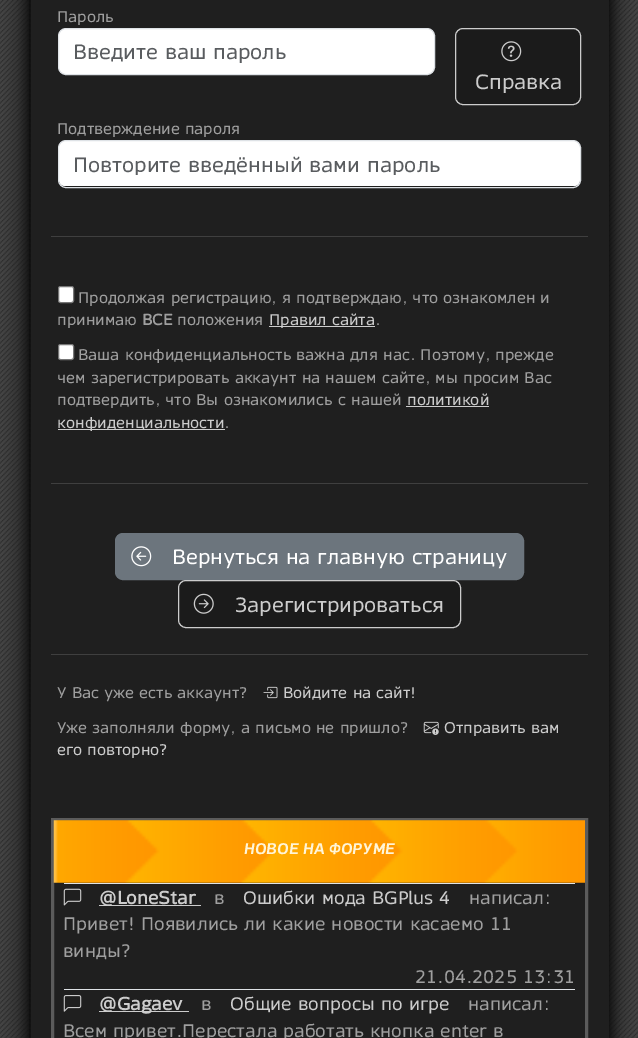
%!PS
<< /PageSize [638 1038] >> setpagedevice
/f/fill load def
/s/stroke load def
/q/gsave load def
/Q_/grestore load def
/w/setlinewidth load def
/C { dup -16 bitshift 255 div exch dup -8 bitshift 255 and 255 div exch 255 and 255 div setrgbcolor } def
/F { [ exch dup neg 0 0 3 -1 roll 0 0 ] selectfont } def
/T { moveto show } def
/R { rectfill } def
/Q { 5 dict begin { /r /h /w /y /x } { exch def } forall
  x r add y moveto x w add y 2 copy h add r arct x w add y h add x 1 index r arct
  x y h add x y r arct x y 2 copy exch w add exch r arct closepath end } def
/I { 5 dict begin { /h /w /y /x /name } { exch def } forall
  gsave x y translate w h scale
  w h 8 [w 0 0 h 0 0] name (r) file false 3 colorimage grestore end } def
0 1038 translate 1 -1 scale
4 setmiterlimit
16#1F1F1F C
0 0 638 1038 R
(1.rgb) 0 0 31 1038 I
/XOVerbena-Regular 15 F
16#9F9F9F C
(Пароль) 57 22 T
16#FFFFFF C
59 29 375 45 6 Q f
16#DEE2E6 C
58.5 28.5 376 46 7.5 Q s
/XOVerbena-Regular 20 F
16#595C5F C
(Введите ваш пароль) 73 59 T
16#1B1B1B C
455.5 28.5 125 76 7.5 Q q f Q_
16#CCCCCC C
s
(2.rgb) 501 41 21 21 I
(Справка) 475 89 T
/XOVerbena-Regular 15 F
16#9F9F9F C
(Подтверждение пароля) 57 134 T
16#FFFFFF C
59 141 521 45 6 Q f
16#DEE2E6 C
58.5 140.5 522 47 7.5 Q s
q
74 151 491 24 rectclip
/XOVerbena-Regular 20 F
16#595C5F C
(Повторите введённый вами пароль) 73 172 T
Q_
16#3F3F3F C
51 236 537 1 R
16#FFFFFF C
58.5 286.5 15 16 2 Q q f Q_
16#767676 C
s
16#9F9F9F C
(Продолжая регистрацию, я подтверждаю, что ознакомлен и) 78 303 T
(принимаю) 57 325 T
/XOVerbena-Bold 15 F
(ВСЕ) 142 325 T
/XOVerbena-Regular 15 F
(положения) 177 325 T
16#CCCCCC C
269 326 106 1 R
(Правил сайта) 269 325 T
16#9F9F9F C
(.) 375 325 T
16#FFFFFF C
58.5 344.5 15 15 2 Q q f Q_
16#767676 C
s
16#9F9F9F C
(Ваша конфиденциальность важна для нас. Поэтому, прежде) 78 360 T
(чем зарегистрировать аккаунт на нашем сайте, мы просим Вас) 57 383 T
(подтвердить, что Вы ознакомились с нашей) 57 405 T
16#CCCCCC C
(политикой) 407 405 T
406 406 83 1 R
58 429 167 1 R
(конфиденциальности) 57 428 T
16#9F9F9F C
(.) 224 428 T
16#3F3F3F C
51 483 537 1 R
16#6C757D C
115.5 533.5 408 46 7.5 Q q f Q_
s
(3.rgb) 131 546 21 21 I
/XOVerbena-Regular 20 F
16#FFFFFF C
(Вернуться на главную страницу) 172 564 T
16#1B1B1B C
178.5 580.5 282 47 7.5 Q q f Q_
16#CCCCCC C
s
(4.rgb) 193 593 21 21 I
(Зарегистрироваться) 235 612 T
16#3F3F3F C
51 654 537 1 R
/XOVerbena-Regular 15 F
16#9F9F9F C
(У Вас уже есть аккаунт?) 57 698 T
(5.rgb) 263 686 15 13 I
16#CCCCCC C
(Войдите на сайт!) 283 698 T
16#9F9F9F C
(Уже заполняли форму, а письмо не пришло?) 57 733 T
(6.rgb) 423 721 16 14 I
16#CCCCCC C
(Отправить вам) 444 733 T
(его повторно?) 57 755 T
16#5B5B5B C
3 w
52.5 819.5 534 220 rectstroke
(7.rgb) 53 820 532 63 I
/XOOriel-BoldItalic 15 F
16#FFF5D8 C
(НОВОЕ НА ФОРУМЕ) 244 854 T
16#DEE2E6 C
64 883 511 1 R
(8.rgb) 63 888 19 18 I
16#CCCCCC C
99 905 102 1 R
/XOVerbena-Bold 17.5 F
(@LoneStar) 99 904 T
/XOVerbena-Regular 17.5 F
16#9F9F9F C
(в) 214 904 T
16#CCCCCC C
(Ошибки мода BGPlus 4) 243 904 T
16#9F9F9F C
(написал:) 469 904 T
(Привет! Появились ли какие новости касаемо 11) 63 930 T
(винды?) 63 957 T
(21.04.2025 13:31) 415 983 T
16#DEE2E6 C
64 989 511 1 R
(9.rgb) 63 995 19 17 I
16#CCCCCC C
99 1011 90 1 R
/XOVerbena-Bold 17.5 F
(@Gagaev) 99 1010 T
/XOVerbena-Regular 17.5 F
16#9F9F9F C
(в) 201 1010 T
16#CCCCCC C
(Общие вопросы по игре) 230 1010 T
16#9F9F9F C
(написал:) 468 1010 T
(Всем привет.Перестала работать кнопка enter в) 63 1037 T
(10.rgb) 609 0 29 1038 I
showpage
